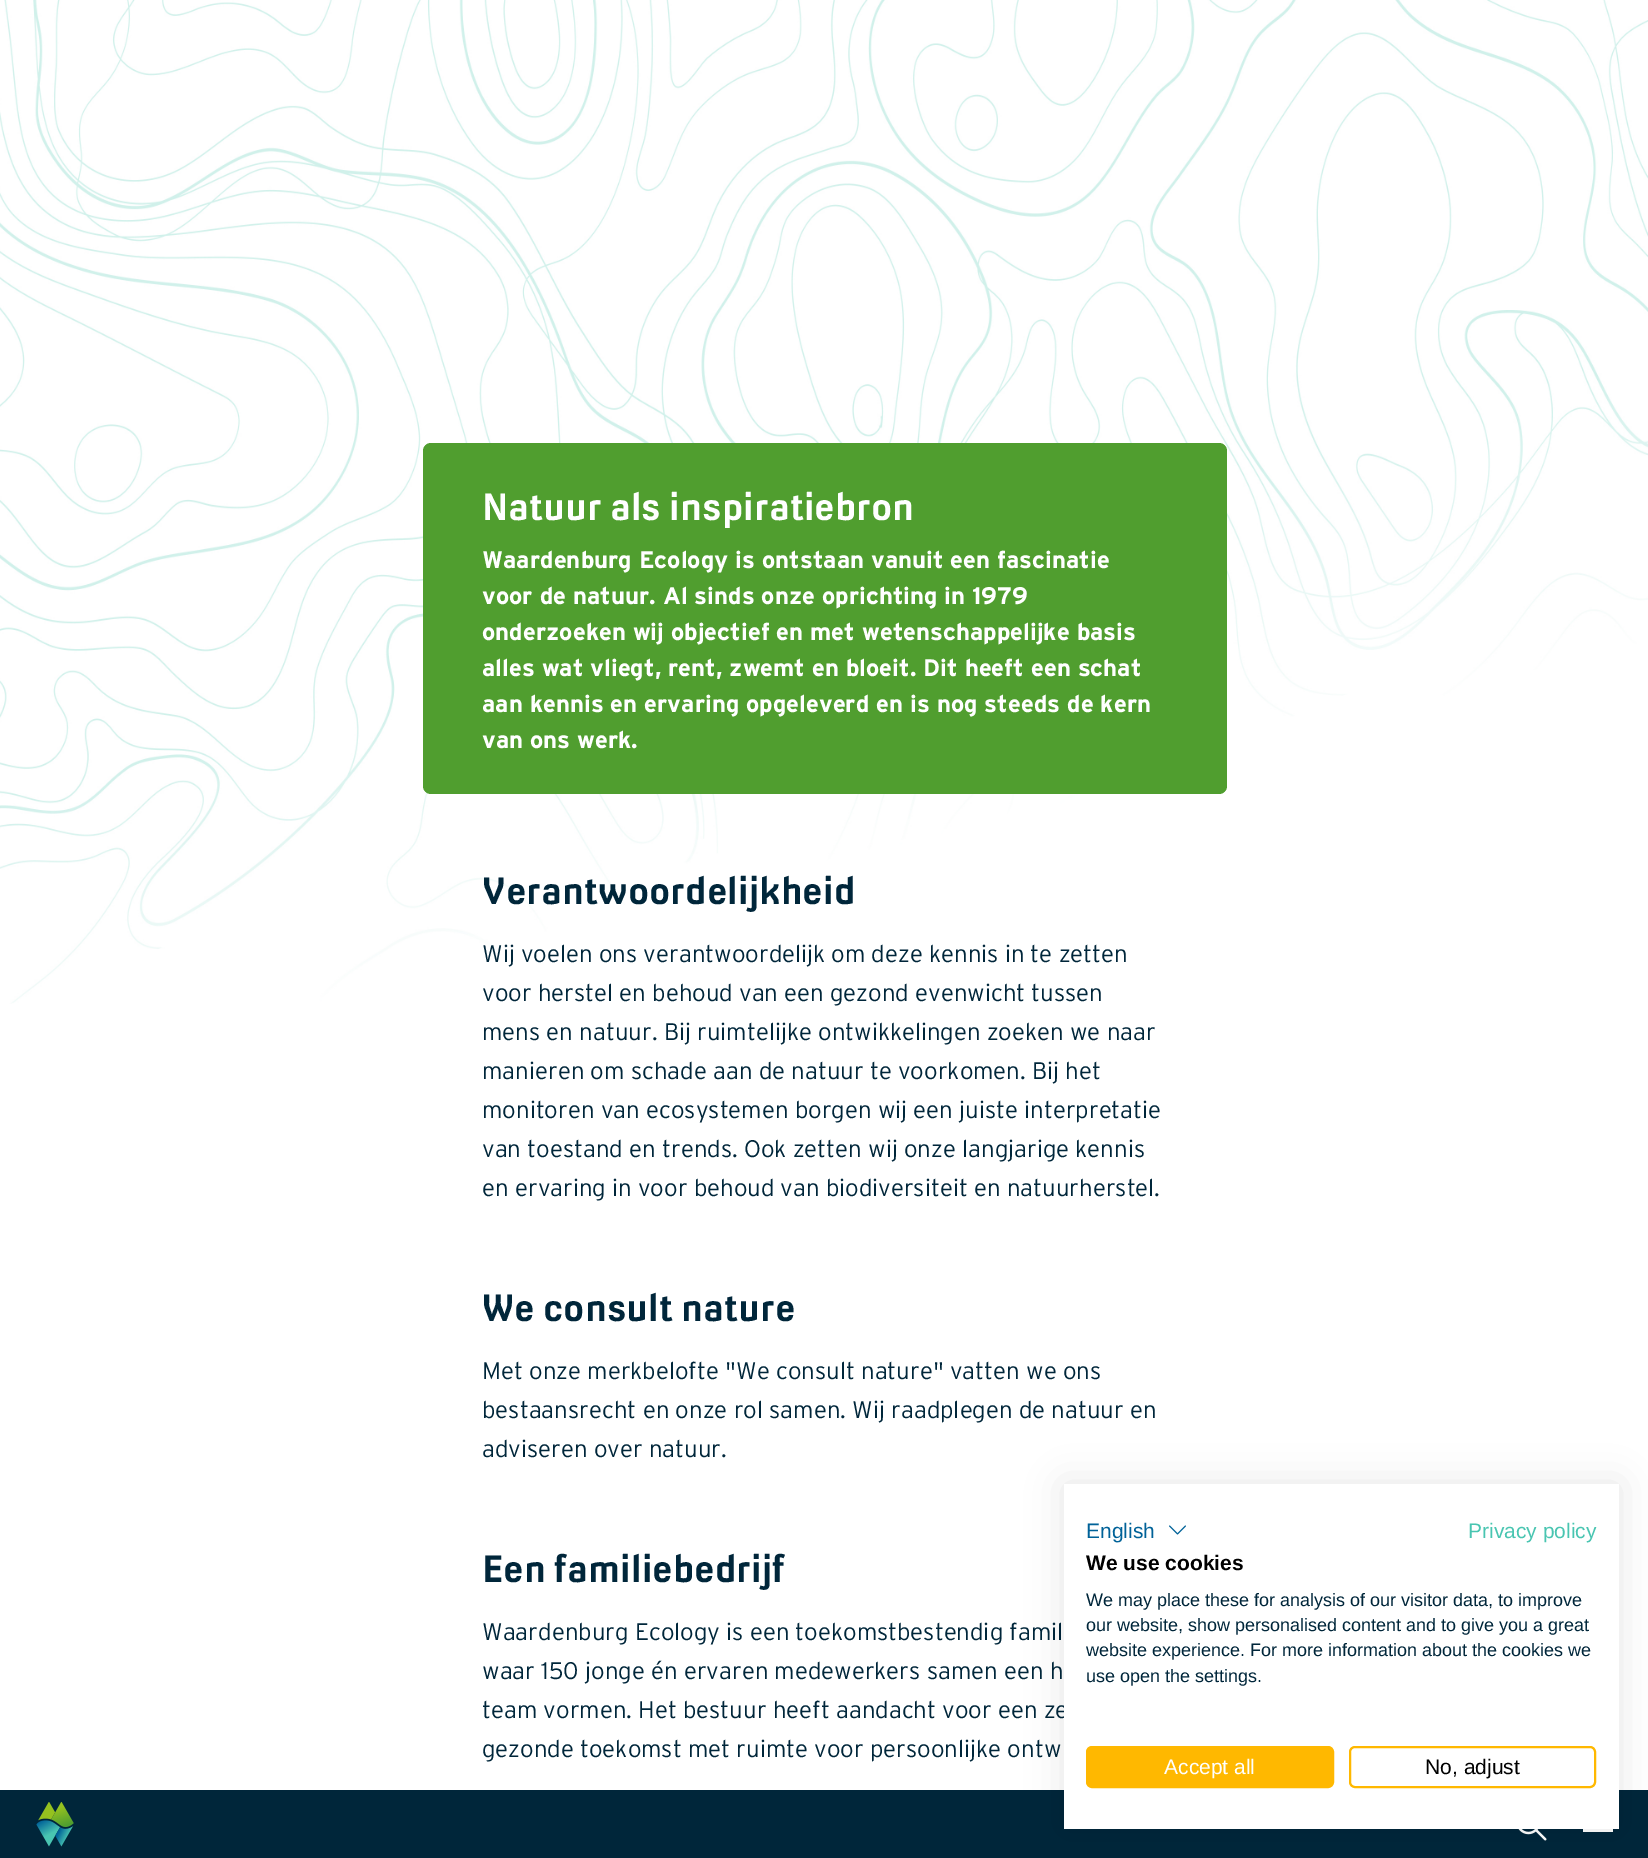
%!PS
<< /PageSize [1648 1858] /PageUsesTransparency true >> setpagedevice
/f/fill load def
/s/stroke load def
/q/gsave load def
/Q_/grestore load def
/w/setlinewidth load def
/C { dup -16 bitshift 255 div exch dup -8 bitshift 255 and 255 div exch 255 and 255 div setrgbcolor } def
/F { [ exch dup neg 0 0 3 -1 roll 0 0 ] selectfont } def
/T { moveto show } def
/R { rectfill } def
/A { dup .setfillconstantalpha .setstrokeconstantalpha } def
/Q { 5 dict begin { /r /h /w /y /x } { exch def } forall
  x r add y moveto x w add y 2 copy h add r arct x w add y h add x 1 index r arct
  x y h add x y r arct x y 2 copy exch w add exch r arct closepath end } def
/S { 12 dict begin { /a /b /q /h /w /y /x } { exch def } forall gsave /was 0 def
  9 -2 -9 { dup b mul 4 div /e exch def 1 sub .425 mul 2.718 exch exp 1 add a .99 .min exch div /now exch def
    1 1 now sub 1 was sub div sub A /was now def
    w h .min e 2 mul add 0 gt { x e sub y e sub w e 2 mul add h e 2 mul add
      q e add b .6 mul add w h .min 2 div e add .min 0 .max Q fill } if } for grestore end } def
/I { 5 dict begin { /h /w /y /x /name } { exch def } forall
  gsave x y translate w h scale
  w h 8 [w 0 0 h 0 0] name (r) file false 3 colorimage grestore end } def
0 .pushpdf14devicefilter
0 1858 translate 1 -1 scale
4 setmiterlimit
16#FFFFFF C
0 0 1648 1858 R
(1.rgb) 0 0 1648 1004 I
16#509E2F C
423 443 804 351 8 Q f
/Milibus-Bold 36 F
16#FFFFFF C
(Natuur als inspiratiebron) 482 520 T
/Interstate-Bold 24 F
(Waardenburg Ecology is ontstaan vanuit een fascinatie) 482 568 T
(voor de natuur. Al sinds onze oprichting in 1979) 482 604 T
(onderzoeken wij objectief en met wetenschappelijke basis) 482 640 T
(alles wat vliegt, rent, zwemt en bloeit. Dit heeft een schat) 482 676 T
(aan kennis en ervaring opgeleverd en is nog steeds de kern) 482 712 T
(van ons werk.) 482 748 T
/Milibus-Bold 36 F
16#00263A C
(Verantwoordelijkheid) 482 904 T
/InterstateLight-Light 24 F
(Wij voelen ons verantwoordelijk om deze kennis in te zetten) 482 962 T
(voor herstel en behoud van een gezond evenwicht tussen) 482 1001 T
(mens en natuur. Bij ruimtelijke ontwikkelingen zoeken we naar) 482 1040 T
(manieren om schade aan de natuur te voorkomen. Bij het) 482 1079 T
(monitoren van ecosystemen borgen wij een juiste interpretatie) 482 1118 T
(van toestand en trends. Ook zetten wij onze langjarige kennis) 482 1157 T
(en ervaring in voor behoud van biodiversiteit en natuurherstel.) 482 1196 T
/Milibus-Bold 36 F
(We consult nature) 482 1321 T
/InterstateLight-Light 24 F
(Met onze merkbelofte "We consult nature" vatten we ons) 482 1379 T
(bestaansrecht en onze rol samen. Wij raadplegen de natuur en) 482 1418 T
(adviseren over natuur.) 482 1457 T
/Milibus-Bold 36 F
(Een familiebedrijf) 482 1582 T
/InterstateLight-Light 24 F
(Waardenburg Ecology is een toekomstbestendig famil) 482 1640 T
(waar 150 jonge én ervaren medewerkers samen een h) 482 1679 T
(team vormen. Het bestuur heeft aandacht voor een ze) 482 1718 T
(gezonde toekomst met ruimte voor persoonlijke ontw) 482 1757 T
0 1790 1648 68 R
(2.rgb) 36 1802 38 45 I
(3.rgb) 1518 1829 29 12 I
16#FFFFFF C
1583 1829 30 3 R
16#000000 C
1064 1484 555 345 0 18 .1 S
16#FFFFFF C
1064 1484 555 345 R
/LiberationSans-Regular 21 F
16#006298 C
(English) 1086 1538 T
(4.rgb) 1169 1525 17 10 I
16#49C5B1 C
(Privacy policy) 1468 1538 T
/LiberationSans-Bold 21 F
16#000000 C
(We use cookies) 1086 1570 T
/LiberationSans-Regular 18 F
16#00263A C
(We may place these for analysis of our visitor data, to improve) 1086 1606 T
(our website, show personalised content and to give you a great) 1086 1631 T
(website experience. For more information about the cookies we) 1086 1656 T
(use open the settings.) 1086 1682 T
16#FFB800 C
1087 1747 246 40 5 Q q f Q_
2 w
s
/LiberationSans-Regular 21 F
16#FFFFFF C
(Accept all) 1164 1774 T
16#FFB800 C
1350 1747 245 40 5 Q s
16#000000 C
(No, adjust) 1425 1774 T
.poppdf14devicefilter showpage
